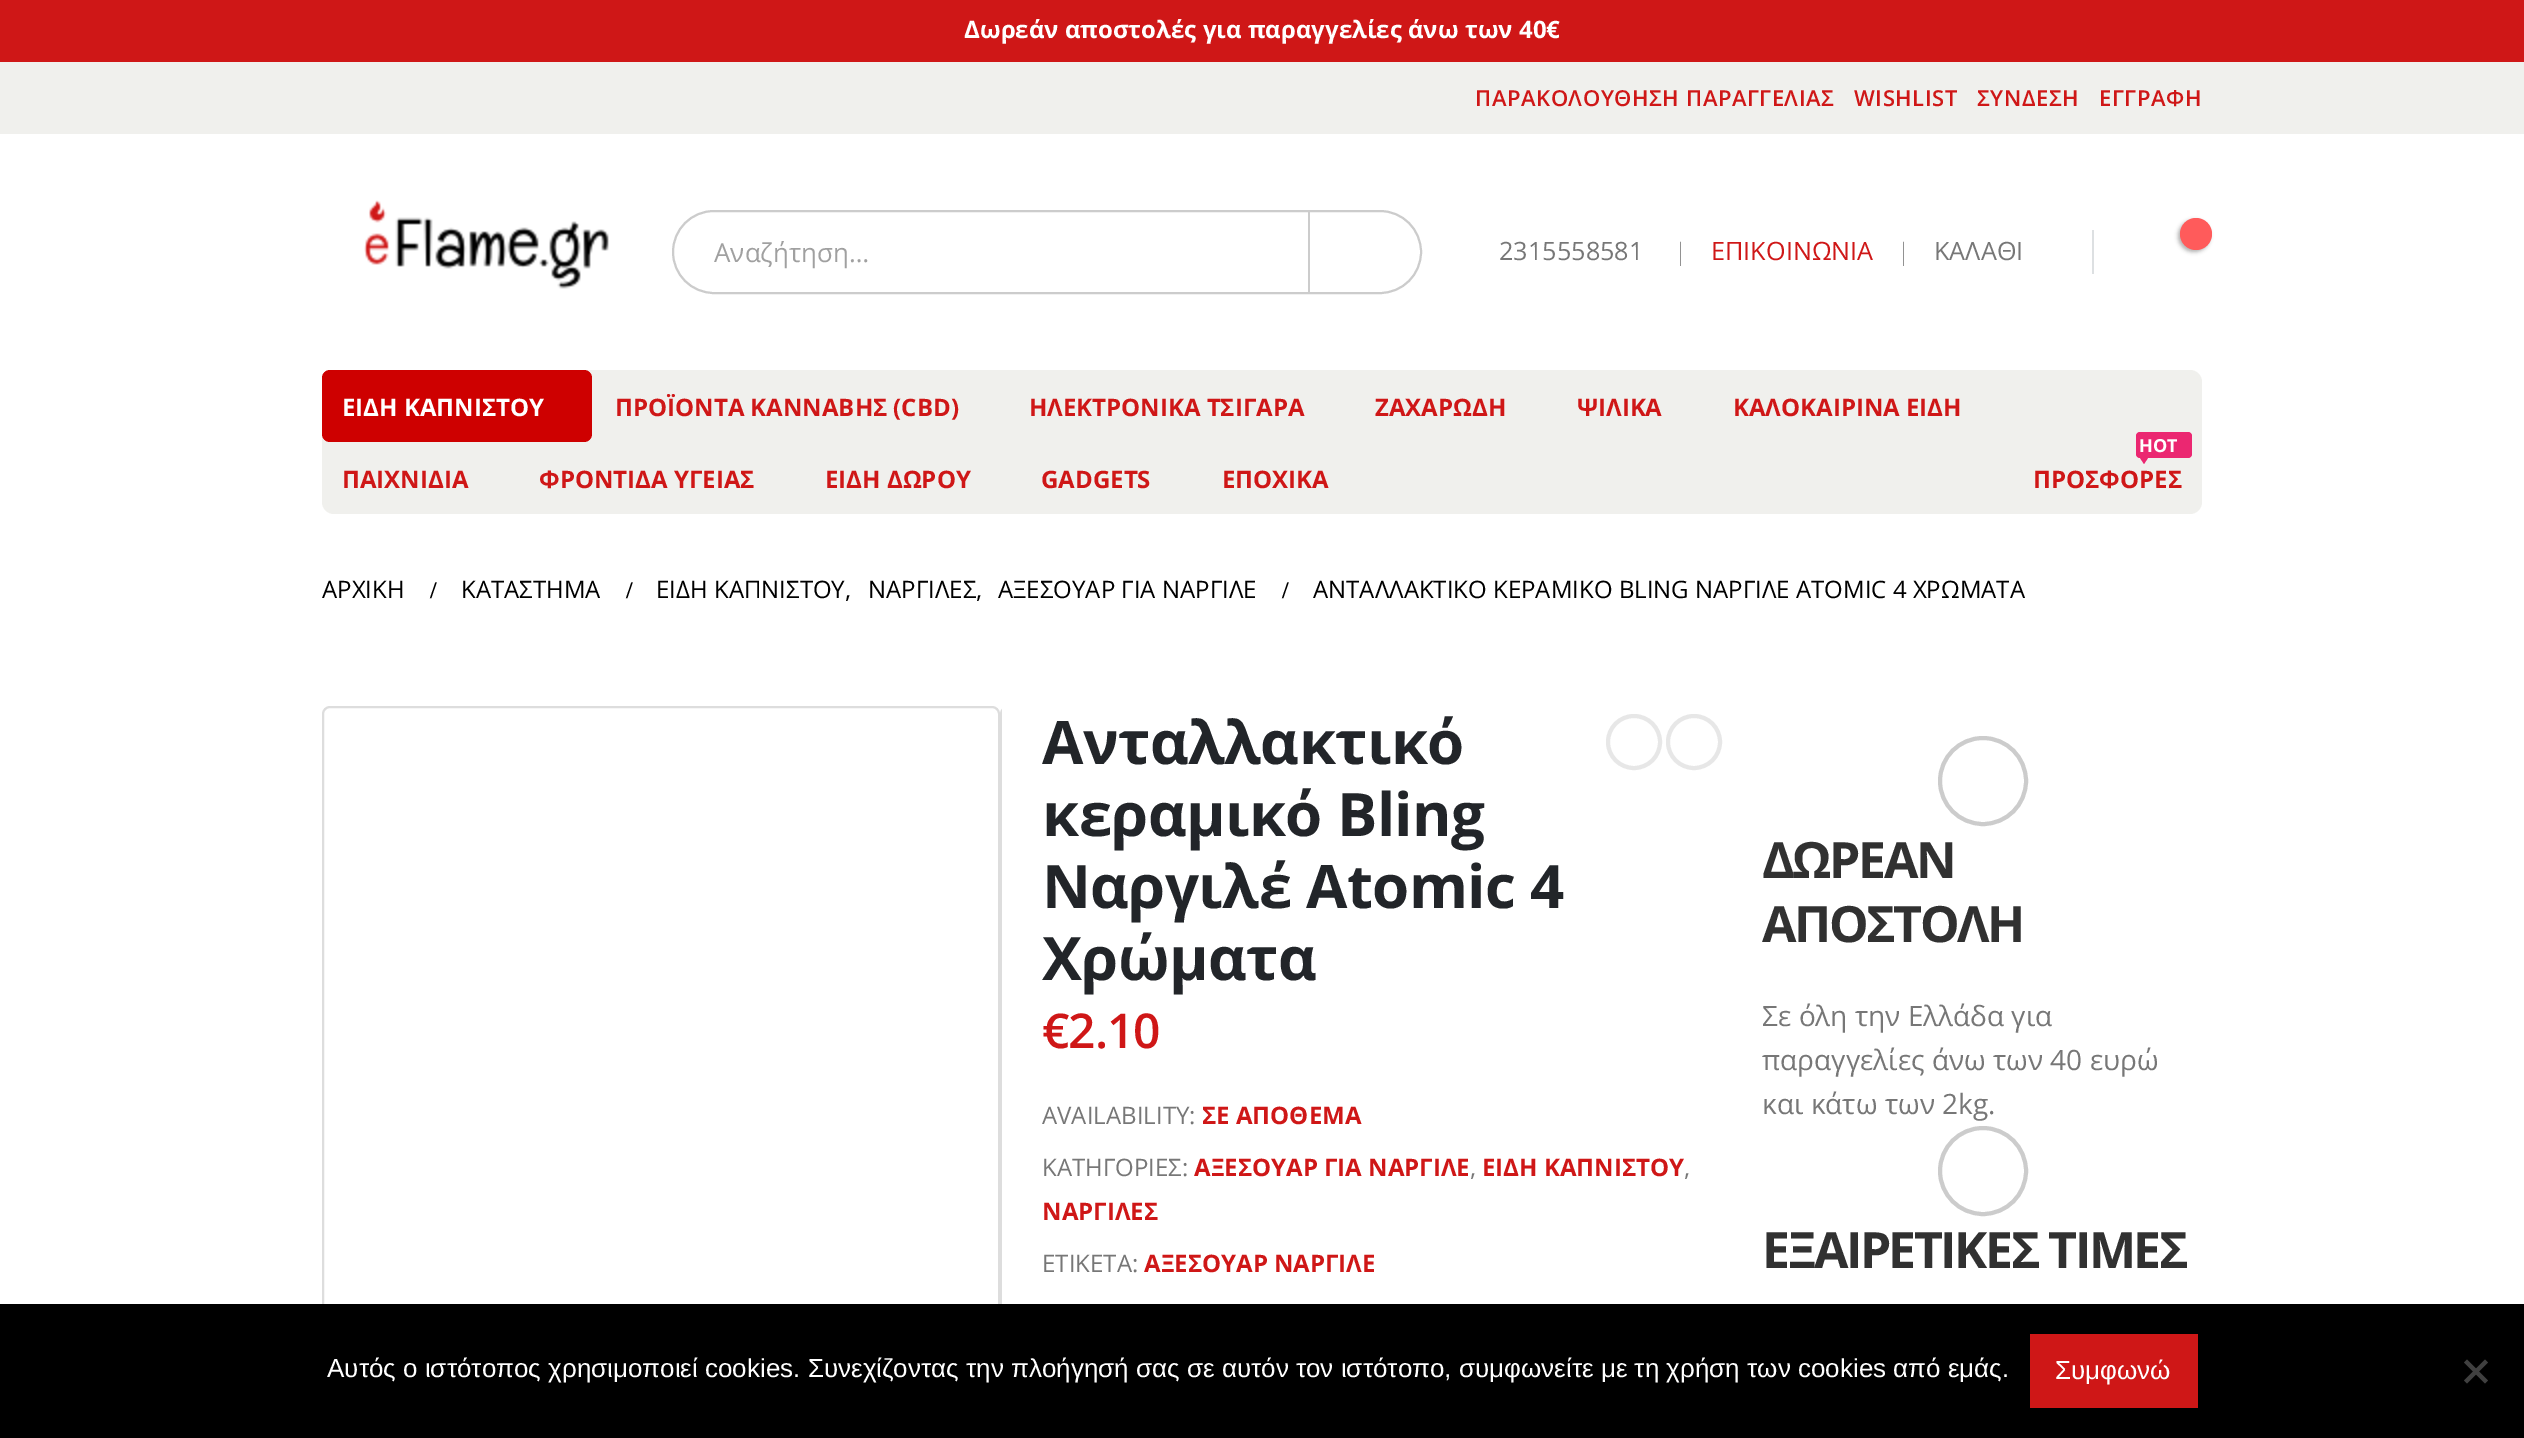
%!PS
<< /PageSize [2524 1438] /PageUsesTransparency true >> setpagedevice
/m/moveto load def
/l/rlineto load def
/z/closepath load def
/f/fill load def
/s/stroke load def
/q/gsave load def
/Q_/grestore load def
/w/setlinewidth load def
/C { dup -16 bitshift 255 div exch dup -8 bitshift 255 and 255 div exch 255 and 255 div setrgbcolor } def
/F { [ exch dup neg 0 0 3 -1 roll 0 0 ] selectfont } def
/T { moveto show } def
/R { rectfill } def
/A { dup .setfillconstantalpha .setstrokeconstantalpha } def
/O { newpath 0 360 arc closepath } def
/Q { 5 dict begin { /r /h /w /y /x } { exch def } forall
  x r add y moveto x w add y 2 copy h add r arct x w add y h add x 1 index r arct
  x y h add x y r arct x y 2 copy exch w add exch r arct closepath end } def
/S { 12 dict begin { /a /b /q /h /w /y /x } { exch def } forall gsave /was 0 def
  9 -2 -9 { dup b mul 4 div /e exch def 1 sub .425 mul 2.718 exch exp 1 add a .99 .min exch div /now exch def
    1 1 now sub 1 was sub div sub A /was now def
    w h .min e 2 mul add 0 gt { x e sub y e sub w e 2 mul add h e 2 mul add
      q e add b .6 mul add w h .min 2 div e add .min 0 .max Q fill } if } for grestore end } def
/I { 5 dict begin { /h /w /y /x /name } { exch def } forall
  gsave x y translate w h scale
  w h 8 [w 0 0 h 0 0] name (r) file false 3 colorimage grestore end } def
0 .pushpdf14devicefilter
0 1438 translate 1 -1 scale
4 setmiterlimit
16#FFFFFF C
0 0 2524 1438 R
16#CF1717 C
0 0 2524 62 R
/OpenSans-Bold 24 F
16#FFFFFF C
(Δωρεάν αποστολές για παραγγελίες άνω των 40€) 964 38 T
16#F0F0ED C
0 62 2524 72 R
/OpenSans-SemiBold 22 F
16#CF1717 C
1475 106 m .55 0 (ΠΑΡΑΚΟΛΟΥΘΗΣΗ ΠΑΡΑΓΓΕΛΙΑΣ) ashow
1854 106 m .55 0 (WISHLIST) ashow
1977 106 m .55 0 (ΣΥΝΔΕΣΗ) ashow
2099 106 m .55 0 (ΕΓΓΡΑΦΗ) ashow
(1.rgb) 364 200 245 89 I
16#CCCCCC C
2 w
673 211 748 82 41 Q s
1308 212 2 80 R
/OpenSans-Regular 26 F
16#A0A0A0 C
(Αναζήτηση…) 714 262 T
16#DDE0E2 C
2092 230 2 44 R
/OpenSans-Regular 25.25 F
16#777777 C
(2315558581) 1499 260 T
/OpenSans-Light 24 F
16#929292 C
(|) 1674 260 T
/OpenSans-Regular 25.25 F
16#CF1717 C
(ΕΠΙΚΟΙΝΩΝΙΑ) 1711 260 T
/OpenSans-Light 24 F
16#929292 C
(|) 1897 260 T
/OpenSans-Regular 25.25 F
16#777777 C
(ΚΑΛΑΘΙ) 1934 260 T
16#000000 C
2178 220 32 32 16 2 .3 S
16#FF5B5B C
2196 234 16 O f
16#F0F0ED C
322 370 1880 144 12 Q f
16#CE0000 C
322 370 270 72 8 Q f
/OpenSans-Bold 24 F
16#FFFFFF C
(ΕΙΔΗ ΚΑΠΝΙΣΤΟΥ) 342 416 T
16#CF1717 C
(ΠΡΟΪΟΝΤΑ ΚΑΝΝΑΒΗΣ \(CBD\)) 615 416 T
(ΗΛΕΚΤΡΟΝΙΚΑ ΤΣΙΓΑΡΑ) 1029 416 T
(ΖΑΧΑΡΩΔΗ) 1375 416 T
(ΨΙΛΙΚΑ) 1577 416 T
(ΚΑΛΟΚΑΙΡΙΝΑ ΕΙΔΗ) 1733 416 T
(ΠΑΙΧΝΙΔΙΑ) 342 488 T
(ΦΡΟΝΤΙΔΑ ΥΓΕΙΑΣ) 539 488 T
(ΕΙΔΗ ΔΩΡΟΥ) 825 488 T
(GADGETS) 1041 488 T
(ΕΠΟΧΙΚΑ) 1222 488 T
16#EB2771 C
2136 432 56 26 4 Q f
/OpenSans-Bold 18 F
16#FFFFFF C
(HOT) 2139 452 T
16#EB2771 C
2140 458 m 8 0 l -4 6 l z f
/OpenSans-Bold 24 F
16#CF1717 C
(ΠΡΟΣΦΟΡΕΣ) 2033 488 T
/OpenSans-Regular 24 F
16#000000 C
(ΑΡΧΙΚΗ) 322 598 T
/LiberationSerif-Bold 24 F
(/) 430 598 T
/OpenSans-Regular 24 F
(ΚΑΤΑΣΤΗΜΑ) 461 598 T
/LiberationSerif-Bold 24 F
(/) 626 598 T
/OpenSans-Regular 24 F
(ΕΙΔΗ ΚΑΠΝΙΣΤΟΥ,) 656 598 T
(ΝΑΡΓΙΛΕΣ,) 868 598 T
(ΑΞΕΣΟΥΑΡ ΓΙΑ ΝΑΡΓΙΛΕ) 998 598 T
/LiberationSerif-Bold 24 F
(/) 1282 598 T
/OpenSans-Regular 24 F
(ΑΝΤΑΛΛΑΚΤΙΚΟ ΚΕΡΑΜΙΚΟ BLING ΝΑΡΓΙΛΕ ATOMIC 4 ΧΡΩΜΑΤΑ) 1313 598 T
16#DDDDDD C
323 707 676 678 7 Q s
/OpenSans-Bold 24 F
16#CF1717 C
(ΕΙΔΗ ΚΑΠΝΙΣΤΟΥ) 1482 1176 T
q
322 706 680 680 rectclip
16#DDDDDD C
1001 707 678 678 7 Q s
Q_
/OpenSans-Bold 60 F
16#222529 C
1042 764 m -.6 0 (Ανταλλακτικό) ashow
1042 836 m -.6 0 (κεραμικό Bling) ashow
1042 908 m -.6 0 (Ναργιλέ Atomic 4) ashow
1042 980 m -.6 0 (Χρώματα) ashow
16#E7E7E7 C
4 w
1634 742 26 O s
1694 742 26 O s
/OpenSans-SemiBold 48 F
16#CF1717 C
1042 1048 m -1 0 (€2.10) ashow
/OpenSans-Regular 24 F
16#777777 C
(AVAILABILITY:) 1042 1124 T
/OpenSans-Bold 24 F
16#CF1717 C
(ΣΕ ΑΠΟΘΕΜΑ) 1202 1124 T
/OpenSans-Regular 24 F
16#777777 C
(ΚΑΤΗΓΟΡΙΕΣ:) 1042 1176 T
/OpenSans-Bold 24 F
16#CF1717 C
(ΑΞΕΣΟΥΑΡ ΓΙΑ ΝΑΡΓΙΛΕ) 1194 1176 T
/OpenSans-Regular 24 F
16#777777 C
(,) 1470 1176 T
(,) 1684 1176 T
/OpenSans-Bold 24 F
16#CF1717 C
(ΝΑΡΓΙΛΕΣ) 1042 1220 T
/OpenSans-Regular 24 F
16#777777 C
(ΕΤΙΚΕΤΑ:) 1042 1272 T
/OpenSans-Bold 24 F
16#CF1717 C
(ΑΞΕΣΟΥΑΡ ΝΑΡΓΙΛΕ) 1144 1272 T
16#CCCCCC C
1983 781 43 O s
/OpenSans-Bold 50 F
16#313131 C
1762 878 m -2.5 0 (ΔΩΡΕΑΝ) ashow
1762 942 m -2.5 0 (ΑΠΟΣΤΟΛΗ) ashow
/OpenSans-Regular 28 F
16#777777 C
(Σε όλη την Ελλάδα για) 1762 1026 T
(παραγγελίες άνω των 40 ευρώ) 1762 1070 T
(και κάτω των 2kg.) 1762 1114 T
16#CCCCCC C
1983 1171 43 O s
/OpenSans-Bold 50 F
16#313131 C
1762 1268 m -2.5 0 (ΕΞΑΙΡΕΤΙΚΕΣ ΤΙΜΕΣ) ashow
16#000000 C
0 1304 2524 134 R
/LiberationSans-Regular 26 F
16#FFFFFF C
(Αυτός ο ιστότοπος χρησιμοποιεί cookies. Συνεχίζοντας την πλοήγησή σας σε αυτόν τον ιστότοπο, συμφωνείτε με τη χρήση των cookies από εμάς.) 327 1377 T
16#CF1717 C
2030 1334 168 74 R
16#FFFFFF C
(Συμφωνώ) 2055 1379 T
16#404040 C
2485 1359.5 m 3 3 l -21 21 l -3 -3 l z f
2464 1362.5 m 3 -3 l 21 21 l -3 3 l z f
.poppdf14devicefilter showpage
